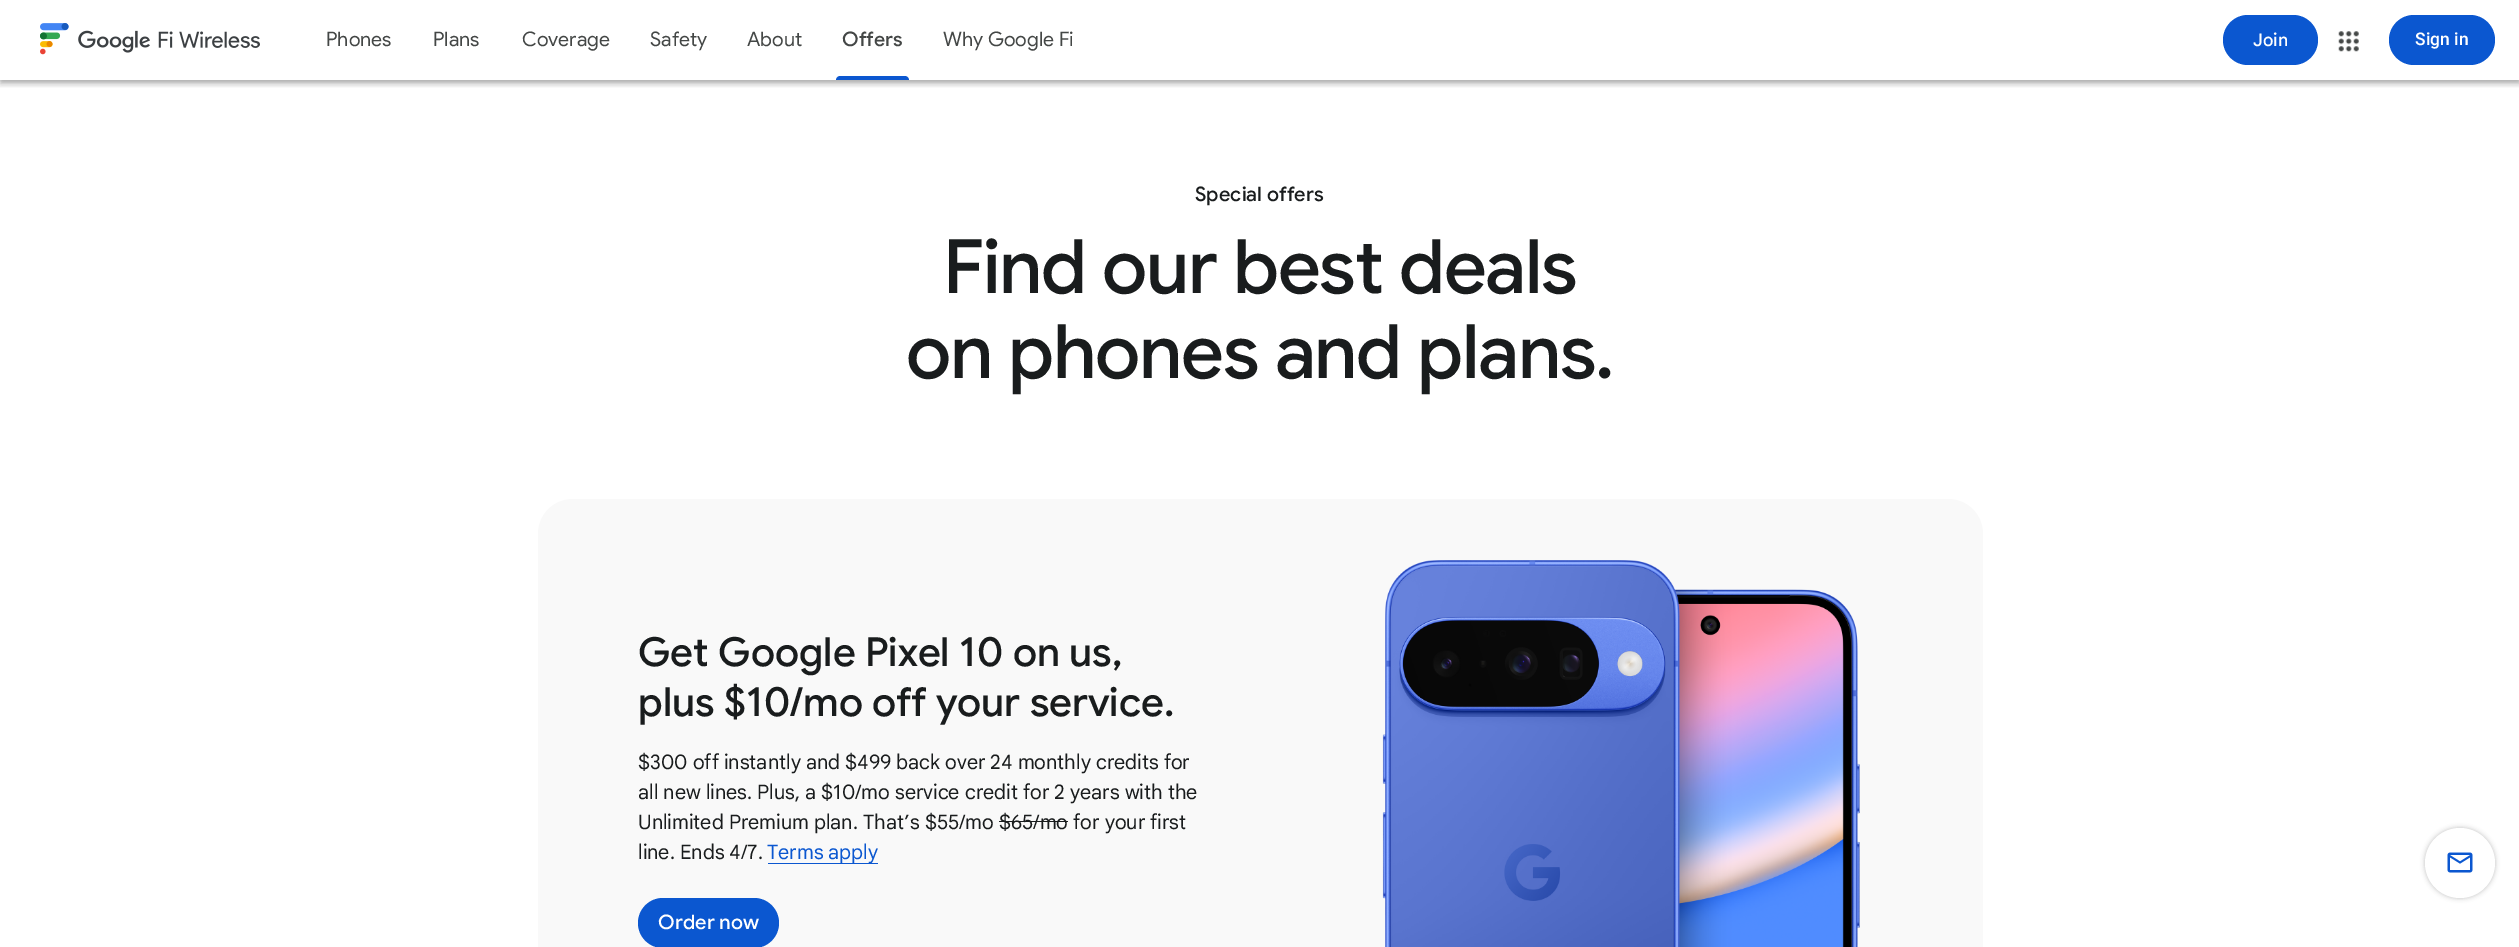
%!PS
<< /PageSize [2519 947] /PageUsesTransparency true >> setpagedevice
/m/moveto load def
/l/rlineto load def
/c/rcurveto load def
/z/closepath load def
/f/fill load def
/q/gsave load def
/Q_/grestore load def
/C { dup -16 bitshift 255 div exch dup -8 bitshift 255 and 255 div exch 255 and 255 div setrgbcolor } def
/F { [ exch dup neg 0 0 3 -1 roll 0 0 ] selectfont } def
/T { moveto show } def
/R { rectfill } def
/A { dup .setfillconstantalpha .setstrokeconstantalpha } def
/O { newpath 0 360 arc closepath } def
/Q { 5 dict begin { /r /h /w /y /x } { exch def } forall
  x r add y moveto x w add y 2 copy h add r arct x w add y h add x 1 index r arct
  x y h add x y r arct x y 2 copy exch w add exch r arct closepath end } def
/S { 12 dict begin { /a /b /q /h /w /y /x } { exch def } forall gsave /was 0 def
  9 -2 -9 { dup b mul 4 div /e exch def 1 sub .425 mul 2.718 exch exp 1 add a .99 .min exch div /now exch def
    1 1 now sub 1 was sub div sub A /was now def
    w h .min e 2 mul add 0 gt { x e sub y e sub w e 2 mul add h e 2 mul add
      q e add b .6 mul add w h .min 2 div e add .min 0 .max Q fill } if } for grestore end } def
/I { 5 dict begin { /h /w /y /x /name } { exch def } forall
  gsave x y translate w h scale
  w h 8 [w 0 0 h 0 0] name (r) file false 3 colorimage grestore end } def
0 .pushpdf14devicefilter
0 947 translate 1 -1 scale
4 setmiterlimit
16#FFFFFF C
0 0 2519 947 R
q
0 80 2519 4 rectclip
16#000000 C
1 4 2518 77 0 2.5 .2 S
Q_
q
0 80 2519 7 rectclip
16#000000 C
0 1 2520 80 0 6 .12 S
Q_
q
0 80 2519 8 rectclip
16#000000 C
0 5 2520 80 0 3 .14 S
Q_
(1.rgb) 40 23 220 32 I
/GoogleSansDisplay-Regular 20 F
16#444746 C
(Phones) 326 46 T
(Plans) 433 46 T
(Coverage) 522 46 T
(Safety) 650 46 T
(About) 747 46 T
/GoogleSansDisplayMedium-Medium 20 F
(Offers) 842 46 T
16#0B57D0 C
840 76 m 65 0 l 2 0 4 2 4 4 c -73 0 l 0 -2 2 -4 4 -4 c z f
/GoogleSansDisplay-Regular 20 F
16#444746 C
(Why Google Fi) 943 46 T
16#0B57D0 C
2223 15 95 50 25 Q f
/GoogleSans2-Medium 17.5 F
16#FFFFFF C
(Join) 2253 46 T
(2.rgb) 2338 31 21 21 I
16#0B57D0 C
2389 15 106 50 25 Q f
/Roboto-Medium 17.5 F
16#FFFFFF C
(Sign in) 2415 45 T
/GoogleSans-Medium 20 F
16#191C1D C
1195 201 m .1 0 (Special offers) ashow
/GoogleSans-Medium 75 F
943 293 m -1.25 0 (Find our best deals) ashow
906 378 m -1.25 0 (on phones and plans.) ashow
16#F9F9F9 C
573 499 m 1375 0 l 19.5 0 35 15.5 35 35 c 0 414 l -1445 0 l 0 -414 l 0 -19.5 15.5 -35 35 -35 c z f
/GoogleSans-Medium 40 F
16#191C1D C
(Get Google Pixel 10 on us,) 638 666 T
(plus $10/mo off your service.) 638 716 T
/GoogleSans-Regular 20 F
($300 off instantly and $499 back over 24 monthly credits for) 638 769 T
(all new lines. Plus, a $10/mo service credit for 2 years with the) 638 799 T
(Unlimited Premium plan. That’s $55/mo $65/mo for your first) 638 829 T
999 821 69 1 R
(line. Ends 4/7.) 638 859 T
16#0B57D0 C
768 863 110 1 R
(Terms apply) 767 859 T
638 898 141 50 25 Q f
/GoogleSans-Medium 20 F
16#FFFFFF C
658 929 m .1 0 (Order now) ashow
(3.rgb) 1382 560 478 387 I
16#000000 C
2425 828 70 70 35 2.5 .25 S
16#FFFFFF C
2460 863 35 O f
(4.rgb) 2447 852 26 21 I
.poppdf14devicefilter showpage
